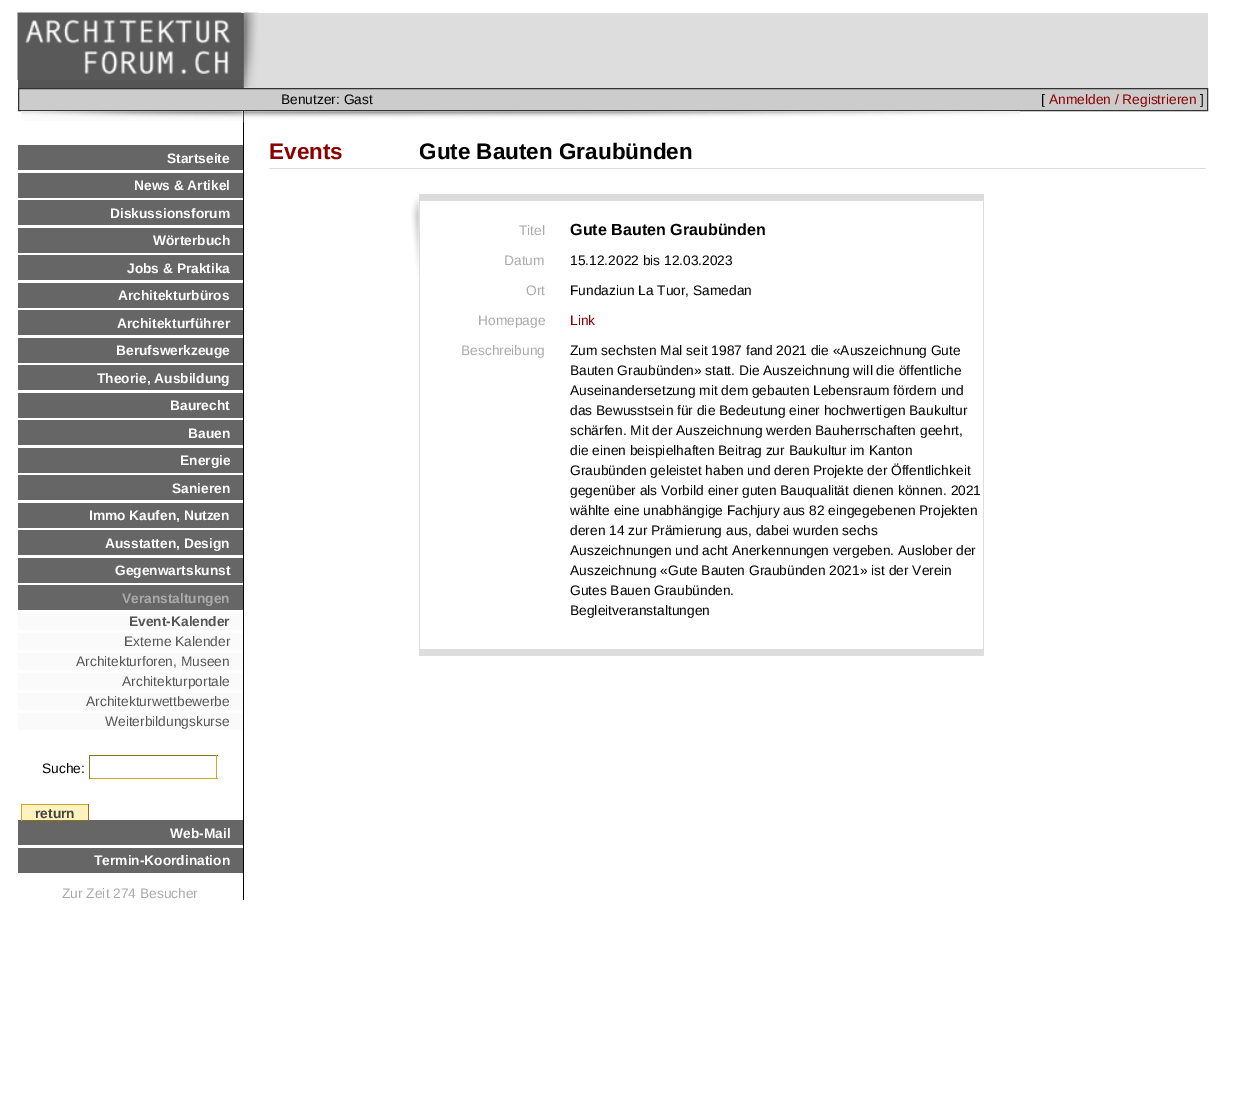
%!PS
<< /PageSize [1235 1120] >> setpagedevice
/m/moveto load def
/l/rlineto load def
/z/closepath load def
/f/fill load def
/s/stroke load def
/q/gsave load def
/Q_/grestore load def
/C { dup -16 bitshift 255 div exch dup -8 bitshift 255 and 255 div exch 255 and 255 div setrgbcolor } def
/F { [ exch dup neg 0 0 3 -1 roll 0 0 ] selectfont } def
/T { moveto show } def
/R { rectfill } def
/I { 5 dict begin { /h /w /y /x /name } { exch def } forall
  gsave x y translate w h scale
  w h 8 [w 0 0 h 0 0] name (r) file false 3 colorimage grestore end } def
0 1120 translate 1 -1 scale
4 setmiterlimit
16#FFFFFF C
0 0 1235 1120 R
16#DDDDDD C
244 13 964 75 R
16#555555 C
18 13 226 75 R
(1.rgb) 17 12 225 68 I
(2.rgb) 243 12 16 76 I
16#CCCCCC C
18.5 88.5 m 1189 0 l 0 22 l -1189 0 l z q f Q_
16#333333 C
s
/LiberationSans-Regular 13.75 F
16#000000 C
(Benutzer: Gast) 281 104 T
([) 1041 104 T
16#8B0000 C
(Anmelden / Registrieren) 1049 104 T
16#000000 C
(]) 1200 104 T
(3.rgb) 21 111 222 10 I
243 111 1 789 R
16#666666 C
18 145 225 25 R
/LiberationSans-Bold 13.75 F
16#FFFFFF C
(Startseite) 167 163 T
16#666666 C
18 173 225 25 R
16#FFFFFF C
(News & Artikel) 134 190 T
16#666666 C
18 200 225 25 R
16#FFFFFF C
(Diskussionsforum) 110 218 T
16#666666 C
18 228 225 25 R
16#FFFFFF C
(Wörterbuch) 153 245 T
16#666666 C
18 255 225 25 R
16#FFFFFF C
(Jobs & Praktika) 127 273 T
16#666666 C
18 283 225 25 R
16#FFFFFF C
(Architekturbüros) 118 300 T
16#666666 C
18 310 225 25 R
16#FFFFFF C
(Architekturführer) 117 328 T
16#666666 C
18 338 225 25 R
16#FFFFFF C
(Berufswerkzeuge) 116 355 T
16#666666 C
18 365 225 25 R
16#FFFFFF C
(Theorie, Ausbildung) 97 383 T
16#666666 C
18 393 225 25 R
16#FFFFFF C
(Baurecht) 170 410 T
16#666666 C
18 420 225 25 R
16#FFFFFF C
(Bauen) 188 438 T
16#666666 C
18 448 225 25 R
16#FFFFFF C
(Energie) 180 465 T
16#666666 C
18 475 225 25 R
16#FFFFFF C
(Sanieren) 172 493 T
16#666666 C
18 503 225 25 R
16#FFFFFF C
(Immo Kaufen, Nutzen) 89 520 T
16#666666 C
18 530 225 25 R
16#FFFFFF C
(Ausstatten, Design) 105 548 T
16#666666 C
18 558 225 25 R
16#FFFFFF C
(Gegenwartskunst) 115 575 T
16#666666 C
18 585 225 25 R
16#AAAAAA C
(Veranstaltungen) 122 603 T
16#FAFAFA C
18 613 225 17 R
16#555555 C
(Event-Kalender) 129 626 T
16#FAFAFA C
18 633 225 17 R
/LiberationSans-Regular 13.75 F
16#555555 C
(Externe Kalender) 124 646 T
16#FAFAFA C
18 653 225 17 R
16#555555 C
(Architekturforen, Museen) 76 666 T
16#FAFAFA C
18 673 225 17 R
16#555555 C
(Architekturportale) 122 686 T
16#FAFAFA C
18 693 225 17 R
16#555555 C
(Architekturwettbewerbe) 86 706 T
16#FAFAFA C
18 713 225 17 R
16#555555 C
(Weiterbildungskurse) 105 726 T
16#000000 C
(Suche:) 42 773 T
16#87711A C
89 755 129 1 R
16#CBAA27 C
216 755 1 24 R
89 778 129 1 R
16#87711A C
89 755 1 24 R
16#FFF2BF C
22 805 66 15 R
/LiberationSans-Bold 13.75 F
16#444444 C
(return) 35 818 T
16#CBAA27 C
21 804 68 1 R
16#666666 C
18 820 225 25 R
16#87711A C
88 804 1 17 R
21 820 68 1 R
16#CBAA27 C
21 804 1 17 R
16#FFFFFF C
(Web-Mail) 170 838 T
16#666666 C
18 848 225 25 R
16#FFFFFF C
(Termin-Koordination) 94 865 T
/LiberationSans-Regular 13.75 F
16#AAAAAA C
(Zur Zeit 274 Besucher) 62 898 T
(4.rgb) 243 111 777 12 I
16#DDDDDD C
269 168 937 1 R
/LiberationSans-Bold 22.5 F
16#8B0000 C
(Events) 269 159 T
16#000000 C
(Gute Bauten Graubünden) 419 159 T
(5.rgb) 411 197 8 79 I
16#DDDDDD C
419 194 565 7 R
983 194 1 462 R
419 649 565 7 R
419 194 1 462 R
/LiberationSans-Regular 13.75 F
16#AAAAAA C
(Titel) 519 235 T
/LiberationSans-Bold 16.1 F
16#000000 C
(Gute Bauten Graubünden) 570 235 T
/LiberationSans-Regular 13.75 F
16#AAAAAA C
(Datum) 504 265 T
16#000000 C
(15.12.2022 bis 12.03.2023) 570 265 T
16#AAAAAA C
(Ort) 526 295 T
16#000000 C
(Fundaziun La Tuor, Samedan) 570 295 T
16#AAAAAA C
(Homepage) 478 325 T
16#8B0000 C
(Link) 570 325 T
16#AAAAAA C
(Beschreibung) 461 355 T
16#000000 C
(Zum sechsten Mal seit 1987 fand 2021 die «Auszeichnung Gute) 570 355 T
(Bauten Graubünden» statt. Die Auszeichnung will die öffentliche) 570 375 T
(Auseinandersetzung mit dem gebauten Lebensraum fördern und) 570 395 T
(das Bewusstsein für die Bedeutung einer hochwertigen Baukultur) 570 415 T
(schärfen. Mit der Auszeichnung werden Bauherrschaften geehrt,) 570 435 T
(die einen beispielhaften Beitrag zur Baukultur im Kanton) 570 455 T
(Graubünden geleistet haben und deren Projekte der Öffentlichkeit) 570 475 T
(gegenüber als Vorbild einer guten Bauqualität dienen können. 2021) 570 495 T
(wählte eine unabhängige Fachjury aus 82 eingegebenen Projekten) 570 515 T
(deren 14 zur Prämierung aus, dabei wurden sechs) 570 535 T
(Auszeichnungen und acht Anerkennungen vergeben. Auslober der) 570 555 T
(Auszeichnung «Gute Bauten Graubünden 2021» ist der Verein) 570 575 T
(Gutes Bauen Graubünden.) 570 595 T
(Begleitveranstaltungen) 570 615 T
showpage
